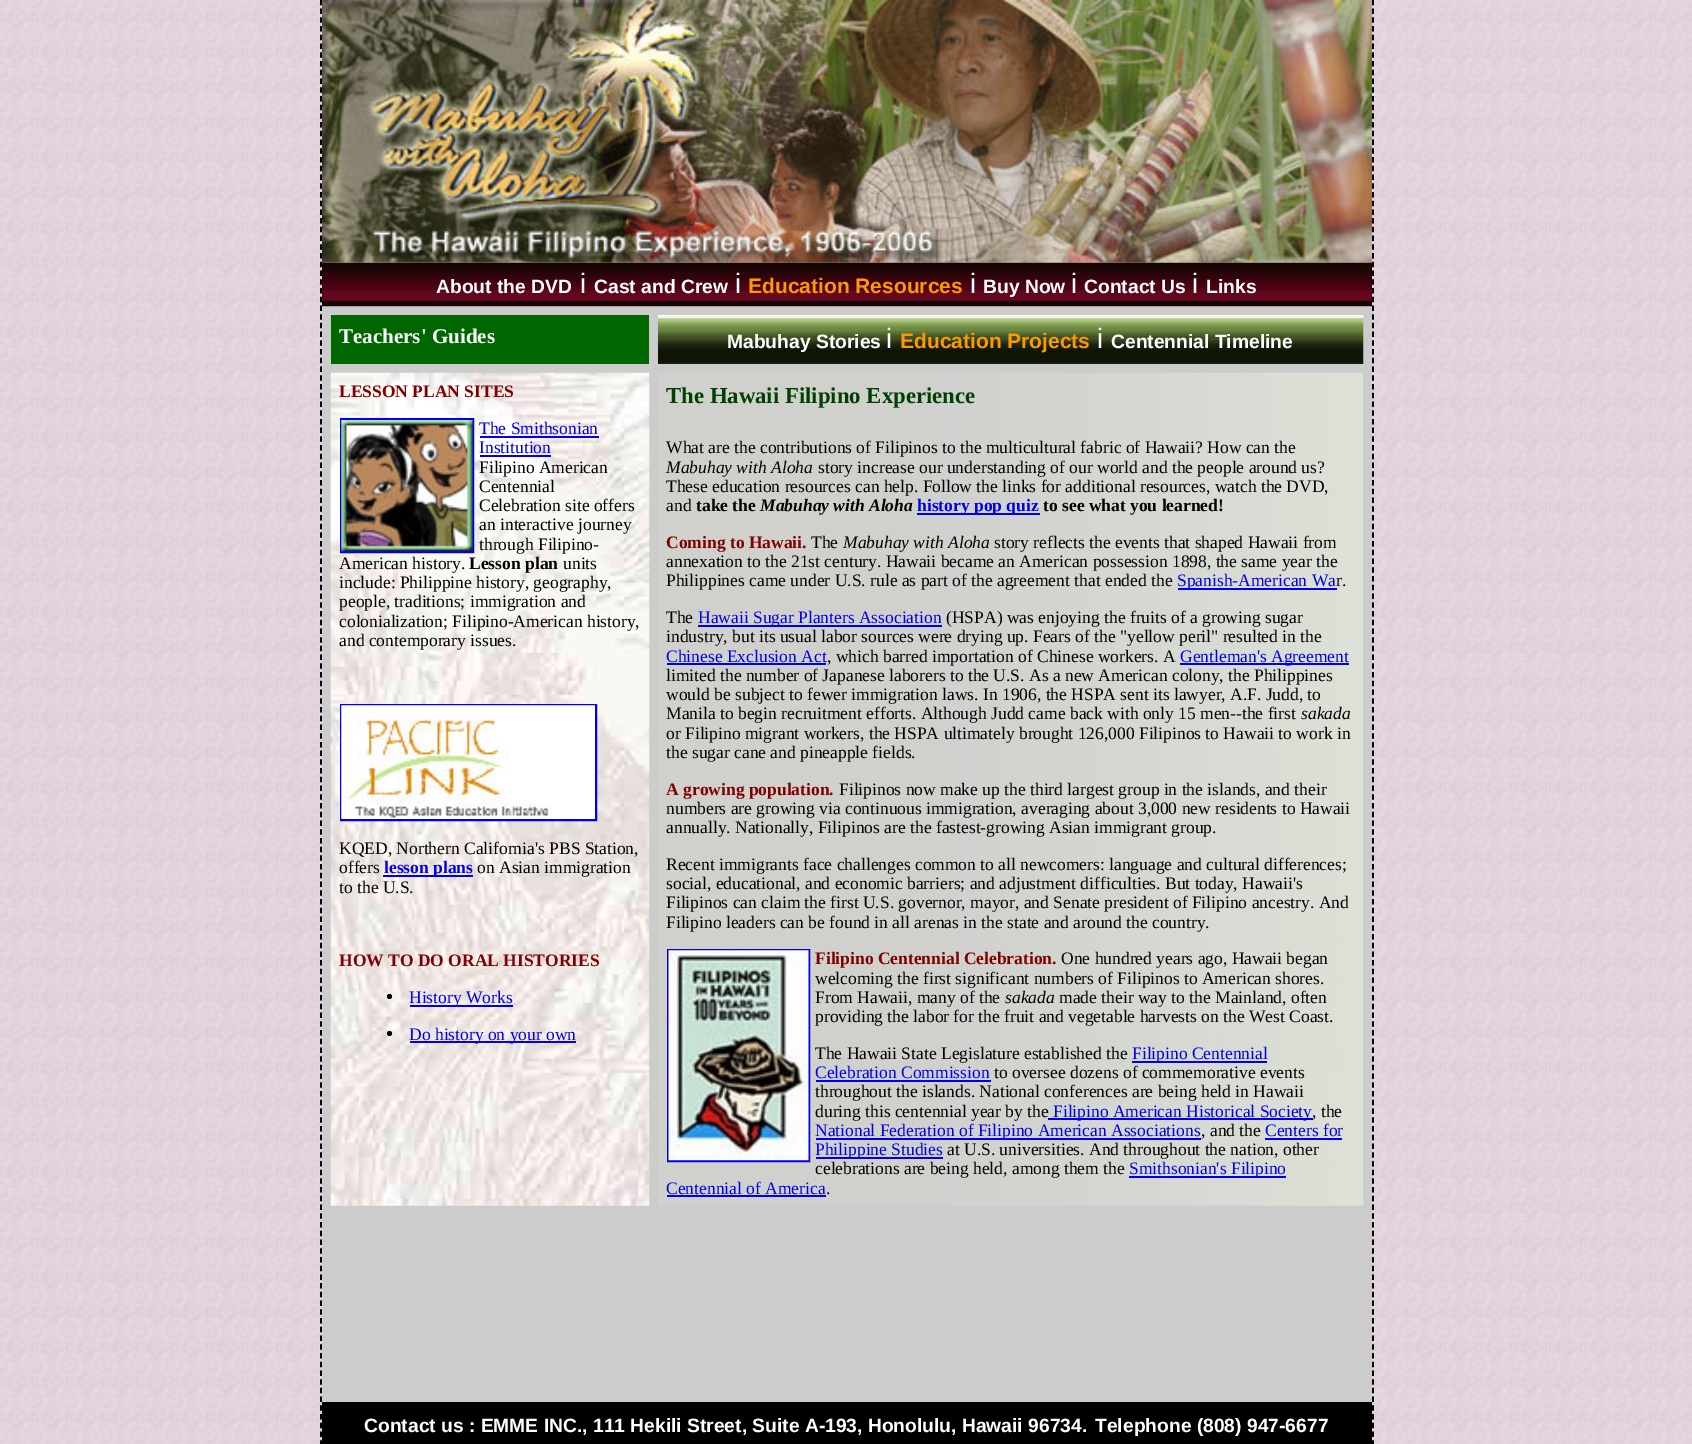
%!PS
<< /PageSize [1692 1444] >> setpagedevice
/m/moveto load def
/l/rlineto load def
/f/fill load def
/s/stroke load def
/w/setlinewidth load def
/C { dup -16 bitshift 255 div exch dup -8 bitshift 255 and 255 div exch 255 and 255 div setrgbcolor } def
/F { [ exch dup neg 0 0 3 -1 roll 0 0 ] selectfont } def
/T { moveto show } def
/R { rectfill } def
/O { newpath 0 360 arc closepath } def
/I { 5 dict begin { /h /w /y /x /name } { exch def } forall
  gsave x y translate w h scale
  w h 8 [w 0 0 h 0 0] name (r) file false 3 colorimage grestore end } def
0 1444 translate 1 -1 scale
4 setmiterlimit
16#CCCCCC C
0 0 1692 1444 R
(1.rgb) 0 0 322 1444 I
16#000000 C
1.8 w
[5.25 3.48] 0 setdash
321 0 m 0 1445.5 l s
(4.rgb) 322 262 1050 45 I
(2.rgb) 322 0 1050 263 I
(3.rgb) 1372 0 320 1444 I
1373 0 m 0 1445.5 l s
/LiberationSans-Bold 19.25 F
16#FFFFFF C
(About the DVD) 436 293 T
/LiberationSans-Regular 28 F
(i) 580 293 T
/LiberationSans-Bold 19.25 F
(Cast and Crew) 594 293 T
/LiberationSans-Regular 28 F
(i) 735 293 T
/LiberationSans-Bold 21 F
16#FF9900 C
(Education Resources) 748 293 T
/LiberationSans-Regular 28 F
16#FFFFFF C
(i) 970 293 T
/LiberationSans-Bold 19.25 F
(Buy Now) 983 293 T
/LiberationSans-Regular 28 F
(i) 1071 293 T
/LiberationSans-Bold 19.25 F
(Contact Us) 1084 293 T
/LiberationSans-Regular 28 F
(i) 1192 293 T
/LiberationSans-Bold 19.25 F
(Links) 1206 293 T
16#006600 C
331 315 318 49 R
/LiberationSerif-Bold 21 F
16#FFFFFF C
(Teachers' Guides) 339 343 T
(5.rgb) 658 315 706 49 I
/LiberationSans-Bold 19.25 F
(Mabuhay Stories) 727 348 T
/LiberationSans-Regular 28 F
(i) 886 348 T
/LiberationSans-Bold 21 F
16#FF9900 C
(Education Projects) 900 348 T
/LiberationSans-Regular 28 F
16#FFFFFF C
(i) 1097 348 T
/LiberationSans-Bold 19.25 F
(Centennial Timeline) 1111 348 T
(6.rgb) 330 372 320 834 I
/LiberationSerif-Bold 17.5 F
16#800000 C
(LESSON PLAN SITES) 339 397 T
16#0000EE C
2 w
[] 0 setdash
341 419 132 133 rectstroke
(7.rgb) 341 420 132 132 I
/LiberationSerif-Regular 17.5 F
(The Smithsonian) 479 434 T
480 436 119 2 R
(Institution) 479 453 T
480 455 71 2 R
16#000000 C
(Filipino American) 479 473 T
(Centennial) 479 492 T
(Celebration site offers) 479 511 T
(an interactive journey) 479 530 T
(through Filipino-) 479 550 T
(American history.) 339 569 T
/LiberationSerif-Bold 17.5 F
(Lesson plan) 469 569 T
/LiberationSerif-Regular 17.5 F
(units) 563 569 T
(include: Philippine history, geography,) 339 588 T
(people, traditions; immigration and) 339 607 T
(colonialization; Filipino-American history,) 339 627 T
(and contemporary issues.) 339 646 T
16#0000EE C
341 705 255 115 rectstroke
(8.rgb) 341 705 254 114 I
16#000000 C
(KQED, Northern California's PBS Station,) 339 854 T
(offers) 339 873 T
16#0000EE C
383 875 90 2 R
/LiberationSerif-Bold 17.5 F
(lesson plans) 384 873 T
/LiberationSerif-Regular 17.5 F
16#000000 C
(on Asian immigration) 477 873 T
(to the U.S.) 339 893 T
/LiberationSerif-Bold 17.5 F
16#800000 C
(HOW TO DO ORAL HISTORIES) 339 966 T
16#000000 C
389.5 996.5 2.5 O f
16#0000EE C
410 1005 103 2 R
/LiberationSerif-Regular 17.5 F
(History Works) 409 1003 T
16#000000 C
389.5 1033.5 2.5 O f
16#0000EE C
410 1041 166 2 R
(Do history on your own) 409 1040 T
(9.rgb) 658 372 706 834 I
/LiberationSerif-Bold 22.75 F
16#004000 C
(The Hawaii Filipino Experience) 666 403 T
/LiberationSerif-Regular 17.5 F
16#000000 C
(What are the contributions of Filipinos to the multicultural fabric of Hawaii? How can the) 666 453 T
/LiberationSerif-Italic 17.5 F
(Mabuhay with Aloha) 666 473 T
/LiberationSerif-Regular 17.5 F
(story increase our understanding of our world and the people around us?) 818 473 T
(These education resources can help. Follow the links for additional resources, watch the DVD,) 666 492 T
(and) 666 511 T
/LiberationSerif-Bold 17.5 F
(take the) 696 511 T
/LiberationSerif-BoldItalic 17.5 F
(Mabuhay with Aloha) 760 511 T
16#0000EE C
917 513 123 2 R
/LiberationSerif-Bold 17.5 F
(history pop quiz) 917 511 T
16#000000 C
(to see what you learned!) 1043 511 T
16#800000 C
(Coming to Hawaii.) 666 548 T
/LiberationSerif-Regular 17.5 F
16#000000 C
(The) 811 548 T
/LiberationSerif-Italic 17.5 F
(Mabuhay with Aloha) 843 548 T
/LiberationSerif-Regular 17.5 F
(story reflects the events that shaped Hawaii from) 994 548 T
(annexation to the 21st century. Hawaii became an American possession 1898, the same year the) 666 567 T
(Philippines came under U.S. rule as part of the agreement that ended the) 666 586 T
16#0000EE C
1178 588 159 2 R
(Spanish-American Wa) 1177 586 T
16#000000 C
(r.) 1336 586 T
(The) 666 623 T
16#0000EE C
698 625 244 2 R
(Hawaii Sugar Planters Association) 698 623 T
16#000000 C
(\(HSPA\) was enjoying the fruits of a growing sugar) 946 623 T
(industry, but its usual labor sources were drying up. Fears of the "yellow peril" resulted in the) 666 642 T
16#0000EE C
(Chinese Exclusion Act) 666 662 T
16#000000 C
(, which barred importation of Chinese workers. A) 827 662 T
16#0000EE C
667 663 159 2 R
1180 663 169 2 R
(Gentleman's Agreement) 1180 662 T
16#000000 C
(limited the number of Japanese laborers to the U.S. As a new American colony, the Philippines) 666 681 T
(would be subject to fewer immigration laws. In 1906, the HSPA sent its lawyer, A.F. Judd, to) 666 700 T
(Manila to begin recruitment efforts. Although Judd came back with only 15 men--the first) 666 719 T
/LiberationSerif-Italic 17.5 F
(sakada) 1301 719 T
/LiberationSerif-Regular 17.5 F
(or Filipino migrant workers, the HSPA ultimately brought 126,000 Filipinos to Hawaii to work in) 666 739 T
(the sugar cane and pineapple fields.) 666 758 T
/LiberationSerif-Bold 17.5 F
16#800000 C
(A growing population.) 666 795 T
/LiberationSerif-Regular 17.5 F
16#000000 C
(Filipinos now make up the third largest group in the islands, and their) 839 795 T
(numbers are growing via continuous immigration, averaging about 3,000 new residents to Hawaii) 666 814 T
(annually. Nationally, Filipinos are the fastest-growing Asian immigrant group.) 666 833 T
(Recent immigrants face challenges common to all newcomers: language and cultural differences;) 666 870 T
(social, educational, and economic barriers; and adjustment difficulties. But today, Hawaii's) 666 889 T
(Filipinos can claim the first U.S. governor, mayor, and Senate president of Filipino ancestry. And) 666 908 T
(Filipino leaders can be found in all arenas in the state and around the country.) 666 928 T
16#0000EE C
668 950 141 211 rectstroke
(10.rgb) 668 950 141 211 I
/LiberationSerif-Bold 17.5 F
16#800000 C
(Filipino Centennial Celebration.) 815 964 T
/LiberationSerif-Regular 17.5 F
16#000000 C
(One hundred years ago, Hawaii began) 1061 964 T
(welcoming the first significant numbers of Filipinos to American shores.) 815 984 T
(From Hawaii, many of the) 815 1003 T
/LiberationSerif-Italic 17.5 F
(sakada) 1005 1003 T
/LiberationSerif-Regular 17.5 F
(made their way to the Mainland, often) 1059 1003 T
(providing the labor for the fruit and vegetable harvests on the West Coast.) 815 1022 T
(The Hawaii State Legislature established the) 815 1059 T
16#0000EE C
1132 1061 135 2 R
(Filipino Centennial) 1132 1059 T
(Celebration Commission) 815 1078 T
816 1080 175 2 R
16#000000 C
(to oversee dozens of commemorative events) 994 1078 T
(throughout the islands. National conferences are being held in Hawaii) 815 1097 T
(during this centennial year by the) 815 1117 T
16#0000EE C
1048 1118 265 2 R
(Filipino American Historical Society) 1053 1117 T
16#000000 C
(, the) 1312 1117 T
16#0000EE C
816 1138 385 2 R
(National Federation of Filipino American Associations) 815 1136 T
16#000000 C
(, and the) 1201 1136 T
16#0000EE C
(Centers for) 1265 1136 T
1265 1138 77 2 R
816 1157 127 2 R
(Philippine Studies) 815 1155 T
16#000000 C
(at U.S. universities. And throughout the nation, other) 947 1155 T
(celebrations are being held, among them the) 815 1174 T
16#0000EE C
1129 1176 157 2 R
(Smithsonian's Filipino) 1129 1174 T
(Centennial of America) 666 1194 T
16#000000 C
(.) 826 1194 T
16#0000EE C
667 1195 159 2 R
16#000000 C
322 1402 1050 42 R
/LiberationSans-Bold 19.25 F
16#FFFFFF C
(Contact us : EMME INC., 111 Hekili Street, Suite A-193, Honolulu, Hawaii 96734.) 364 1432 T
(Telephone \(808\) 947-6677) 1095 1432 T
showpage
